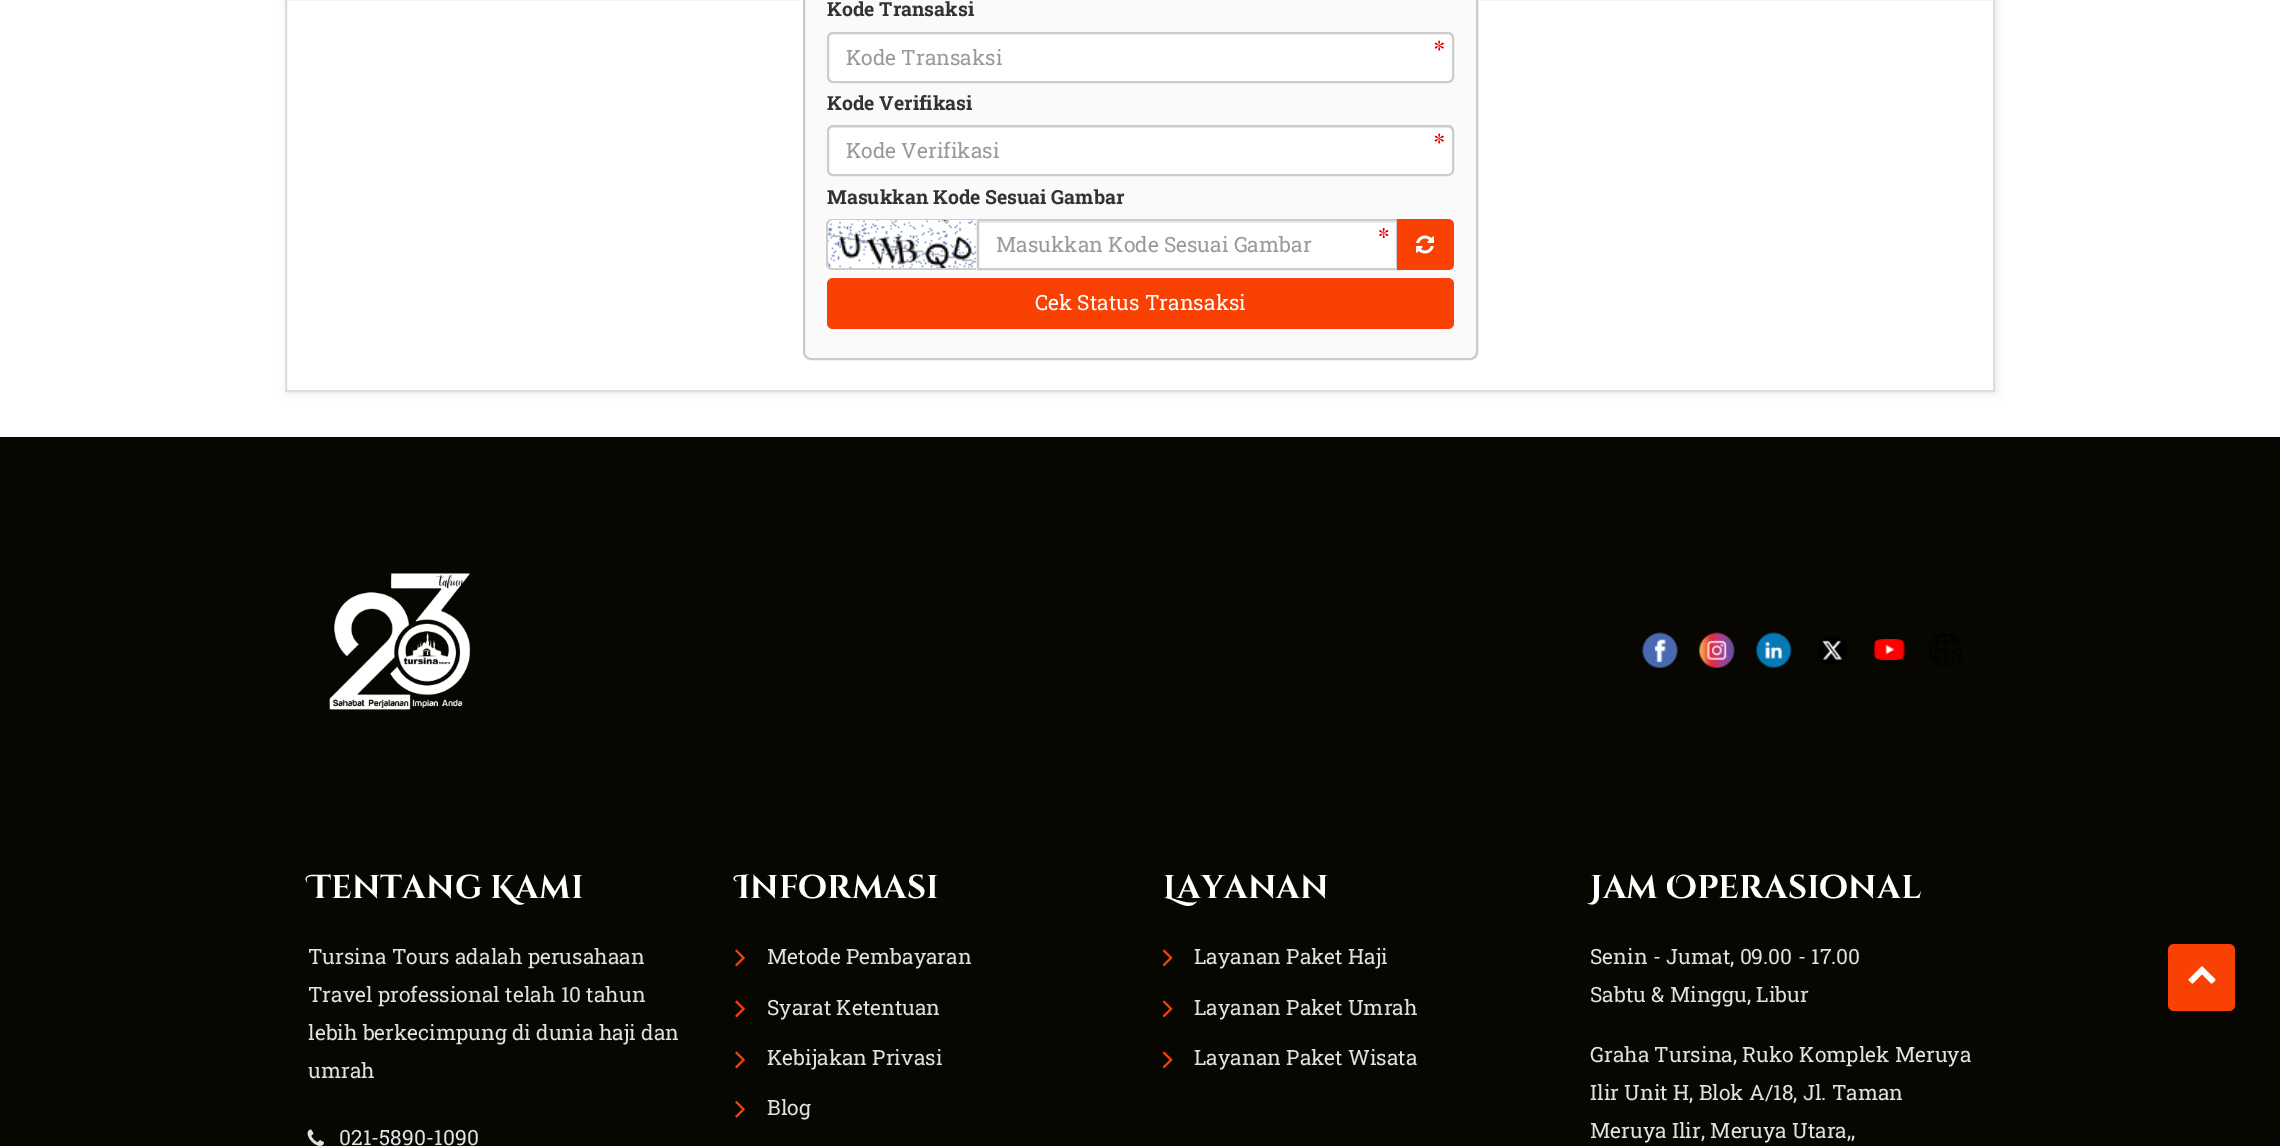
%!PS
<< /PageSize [2280 1146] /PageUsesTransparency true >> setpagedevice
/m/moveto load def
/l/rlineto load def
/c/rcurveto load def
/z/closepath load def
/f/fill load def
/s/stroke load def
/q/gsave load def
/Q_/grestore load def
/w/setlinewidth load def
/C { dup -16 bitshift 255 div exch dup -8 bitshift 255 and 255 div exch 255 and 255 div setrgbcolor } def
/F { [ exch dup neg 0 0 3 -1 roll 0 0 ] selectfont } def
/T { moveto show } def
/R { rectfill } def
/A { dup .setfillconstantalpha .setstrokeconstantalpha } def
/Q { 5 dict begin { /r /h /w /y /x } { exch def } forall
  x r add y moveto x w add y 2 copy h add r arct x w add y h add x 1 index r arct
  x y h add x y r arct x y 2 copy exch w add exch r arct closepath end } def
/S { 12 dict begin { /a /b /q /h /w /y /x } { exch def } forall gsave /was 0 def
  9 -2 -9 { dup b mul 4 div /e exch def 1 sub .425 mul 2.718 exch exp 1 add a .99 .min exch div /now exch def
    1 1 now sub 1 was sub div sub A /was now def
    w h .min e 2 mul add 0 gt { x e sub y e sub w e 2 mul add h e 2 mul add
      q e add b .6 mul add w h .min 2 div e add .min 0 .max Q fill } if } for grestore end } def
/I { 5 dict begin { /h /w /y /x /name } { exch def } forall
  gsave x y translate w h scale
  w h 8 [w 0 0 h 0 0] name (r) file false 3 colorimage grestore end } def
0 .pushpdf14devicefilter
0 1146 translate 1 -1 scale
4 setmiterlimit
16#FFFFFF C
0 0 2280 1146 R
16#000000 C
287 -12 1710 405 0 4 .08 S
16#FFFFFF C
286 -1 m 1708 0 l 0 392 l -1708 0 l z q f Q_
16#DDDDDD C
2 w
s
16#FAFAFA C
804 -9 673 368 7 Q q f Q_
16#CACACA C
s
/RobotoSlab-Bold 19.5 F
16#333333 C
(Kode Transaksi) 827 16 T
16#FFFFFF C
827 32 627 51 6 Q f
(1.rgb) 1434 40 10 11 I
16#ECECEC C
832 34 m 616 0 l 2 0 4 3 4 5 c 0 -1 l 0 -3 -2 -5 -5 -5 c -614 0 l -3 0 -5 2 -5 5 c 0 1 l 0 -2 2 -5 4 -5 c z f
16#CCCCCC C
828 33 625 49 5 Q s
/RobotoSlab-Regular 21 F
16#999999 C
(Kode Transaksi) 846 65 T
/RobotoSlab-Bold 19.5 F
16#333333 C
(Kode Verifikasi) 827 110 T
16#FFFFFF C
827 125 627 51 6 Q f
(1.rgb) 1434 133 10 11 I
16#ECECEC C
832 128 m 616 0 l 2 0 4 2 4 4 c 0 -1 l 0 -3 -2 -5 -5 -5 c -614 0 l -3 0 -5 2 -5 5 c 0 1 l 0 -2 2 -4 4 -4 c z f
16#CCCCCC C
828 126 625 49 5 Q s
/RobotoSlab-Regular 21 F
16#999999 C
(Kode Verifikasi) 846 158 T
/RobotoSlab-Bold 19.5 F
16#333333 C
(Masukkan Kode Sesuai Gambar) 827 204 T
16#EEEEEE C
833 219 m 144 0 l 0 51 l -144 0 l -3.5 0 -6 -2.5 -6 -6 c 0 -39 l 0 -3.5 2.5 -6 6 -6 c z f
(2.rgb) 826 219 151 51 I
16#CCCCCC C
832 219 m 144 0 l 0 51 l -144 0 l -3 0 -6 -3 -6 -6 c 0 -39 l 0 -3 3 -6 6 -6 c z 832 220 m 144 0 l 0 48 l -144 0 l -2 0 -4 -2 -4 -4 c 0 -39 l 0 -2 2 -5 4 -5 c z eofill
16#FFFFFF C
979 223 417 45 R
(3.rgb) 1379 227 10 12 I
16#ECECEC C
978 221 419 2 R
16#CCCCCC C
978 220 419 49 rectstroke
/RobotoSlab-Regular 21 F
16#999999 C
(Masukkan Kode Sesuai Gambar) 996 252 T
16#FA4104 C
1397 219 m 51 0 l 3.5 0 6 2.5 6 6 c 0 39 l 0 3.5 -2.5 6 -6 6 c -51 0 l z f
(4.rgb) 1416 235 18 19 I
827 278 627 51 6 Q f
16#FFFFFF C
(Cek Status Transaksi) 1035 310 T
16#070600 C
0 437 2280 709 R
(5.rgb) 329 573 142 137 I
(6.rgb) 1642 632 36 36 I
(7.rgb) 1699 632 36 36 I
(8.rgb) 1756 632 36 36 I
(9.rgb) 1817 635 30 30 I
(10.rgb) 1874 639 31 21 I
(11.rgb) 1929 633 33 33 I
/CinzelDecorative-Bold 33 F
16#FFFFFF C
(Tentang Kami) 308 898 T
/RobotoSlab-Regular 21 F
16#E1E1E1 C
(Tursina Tours adalah perusahaan) 308 964 T
(Travel professional telah 10 tahun) 308 1002 T
(lebih berkecimpung di dunia haji dan) 308 1040 T
(umrah) 308 1078 T
(12.rgb) 307 1129 17 17 I
(021-5890-1090) 339 1145 T
/CinzelDecorative-Bold 33 F
16#FFFFFF C
(Informasi) 735 898 T
(13.rgb) 735 949 10 18 I
/RobotoSlab-Regular 21 F
16#E1E1E1 C
(Metode Pembayaran) 767 964 T
(13.rgb) 735 1000 10 18 I
(Syarat Ketentuan) 767 1015 T
(13.rgb) 735 1051 10 18 I
(Kebijakan Privasi) 767 1065 T
(14.rgb) 735 1101 10 17 I
(Blog) 767 1115 T
/CinzelDecorative-Bold 33 F
16#FFFFFF C
(Layanan) 1163 898 T
(15.rgb) 1162 949 11 18 I
/RobotoSlab-Regular 21 F
16#E1E1E1 C
(Layanan Paket Haji) 1194 964 T
(15.rgb) 1162 1000 11 18 I
(Layanan Paket Umrah) 1194 1015 T
(15.rgb) 1162 1051 11 18 I
(Layanan Paket Wisata) 1194 1065 T
/CinzelDecorative-Bold 33 F
16#FFFFFF C
(Jam Operasional) 1590 898 T
/RobotoSlab-Regular 21 F
16#E1E1E1 C
(Senin - Jumat, 09.00 - 17.00) 1590 964 T
(Sabtu & Minggu, Libur) 1590 1002 T
(Graha Tursina, Ruko Komplek Meruya) 1590 1062 T
(Ilir Unit H, Blok A/18, Jl. Taman) 1590 1100 T
(Meruya Ilir, Meruya Utara,,) 1590 1138 T
16#FA4104 C
2168 944 67 67 6 Q f
(16.rgb) 2188 966 28 18 I
.poppdf14devicefilter showpage
